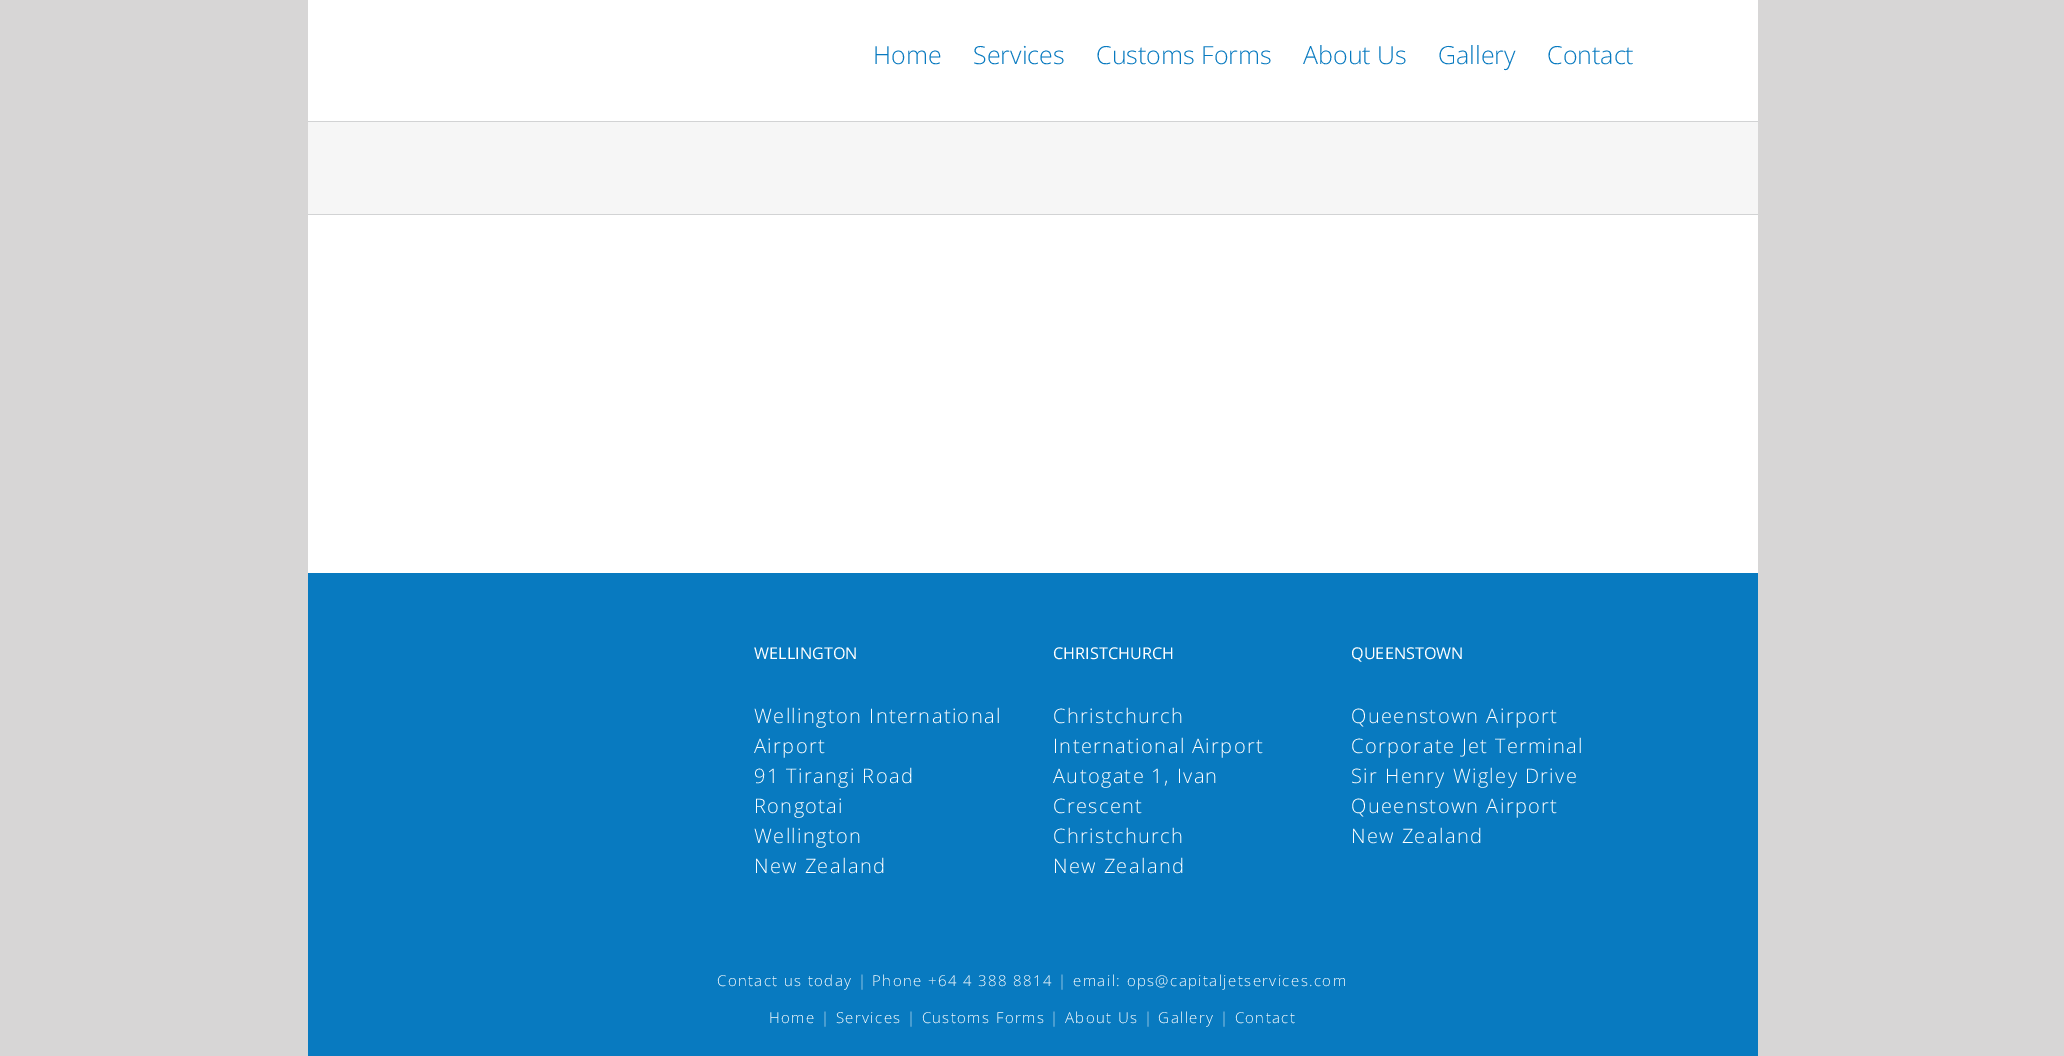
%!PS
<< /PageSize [2064 1056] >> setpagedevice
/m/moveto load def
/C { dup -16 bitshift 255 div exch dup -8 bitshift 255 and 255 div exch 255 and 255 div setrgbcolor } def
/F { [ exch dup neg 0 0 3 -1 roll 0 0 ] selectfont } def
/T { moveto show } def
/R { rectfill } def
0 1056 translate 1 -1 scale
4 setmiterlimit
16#D7D6D6 C
0 0 2064 1056 R
16#FFFFFF C
308 0 1450 121 R
/OpenSans-Light 25 F
16#087AC0 C
(Home) 873 64 T
(Services) 973 64 T
(Customs Forms) 1096 64 T
(About Us) 1303 64 T
(Gallery) 1438 64 T
(Contact) 1547 64 T
16#F6F6F6 C
308 122 1450 92 R
16#D2D3D4 C
308 121 1450 1 R
308 214 1450 1 R
16#FFFFFF C
308 215 1450 358 R
16#087AC0 C
308 573 1450 483 R
/OpenSans-Regular 16.25 F
16#FFFFFF C
(WELLINGTON) 754 659 T
/OpenSans-Light 20 F
754 723 m 1.38 0 (Wellington International) ashow
754 753 m 1.38 0 (Airport) ashow
754 783 m 1.38 0 (91 Tirangi Road) ashow
754 813 m 1.38 0 (Rongotai) ashow
754 843 m 1.38 0 (Wellington) ashow
754 873 m 1.38 0 (New Zealand) ashow
/OpenSans-Regular 16.25 F
(CHRISTCHURCH) 1053 659 T
/OpenSans-Light 20 F
1053 723 m 1.38 0 (Christchurch) ashow
1053 753 m 1.38 0 (International Airport) ashow
1053 783 m 1.38 0 (Autogate 1, Ivan) ashow
1053 813 m 1.38 0 (Crescent) ashow
1053 843 m 1.38 0 (Christchurch) ashow
1053 873 m 1.38 0 (New Zealand) ashow
/OpenSans-Regular 16.25 F
(QUEENSTOWN) 1351 659 T
/OpenSans-Light 20 F
1351 723 m 1.38 0 (Queenstown Airport) ashow
1351 753 m 1.38 0 (Corporate Jet Terminal) ashow
1351 783 m 1.38 0 (Sir Henry Wigley Drive) ashow
1351 813 m 1.38 0 (Queenstown Airport) ashow
1351 843 m 1.38 0 (New Zealand) ashow
/OpenSans-Light 15 F
717 986 m 1.38 0 (Contact us today | Phone +64 4 388 8814 | email: ops@capitaljetservices.com) ashow
769 1023 m 1.38 0 (Home | Services | Customs Forms | About Us | Gallery | Contact) ashow
showpage
